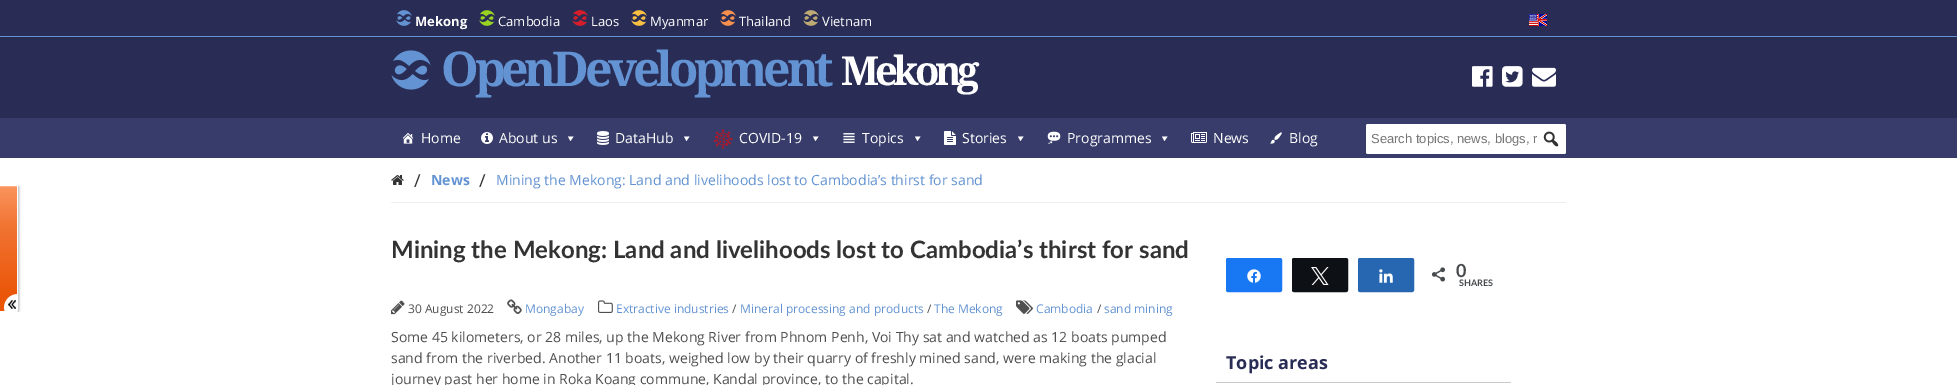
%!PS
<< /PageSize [1957 385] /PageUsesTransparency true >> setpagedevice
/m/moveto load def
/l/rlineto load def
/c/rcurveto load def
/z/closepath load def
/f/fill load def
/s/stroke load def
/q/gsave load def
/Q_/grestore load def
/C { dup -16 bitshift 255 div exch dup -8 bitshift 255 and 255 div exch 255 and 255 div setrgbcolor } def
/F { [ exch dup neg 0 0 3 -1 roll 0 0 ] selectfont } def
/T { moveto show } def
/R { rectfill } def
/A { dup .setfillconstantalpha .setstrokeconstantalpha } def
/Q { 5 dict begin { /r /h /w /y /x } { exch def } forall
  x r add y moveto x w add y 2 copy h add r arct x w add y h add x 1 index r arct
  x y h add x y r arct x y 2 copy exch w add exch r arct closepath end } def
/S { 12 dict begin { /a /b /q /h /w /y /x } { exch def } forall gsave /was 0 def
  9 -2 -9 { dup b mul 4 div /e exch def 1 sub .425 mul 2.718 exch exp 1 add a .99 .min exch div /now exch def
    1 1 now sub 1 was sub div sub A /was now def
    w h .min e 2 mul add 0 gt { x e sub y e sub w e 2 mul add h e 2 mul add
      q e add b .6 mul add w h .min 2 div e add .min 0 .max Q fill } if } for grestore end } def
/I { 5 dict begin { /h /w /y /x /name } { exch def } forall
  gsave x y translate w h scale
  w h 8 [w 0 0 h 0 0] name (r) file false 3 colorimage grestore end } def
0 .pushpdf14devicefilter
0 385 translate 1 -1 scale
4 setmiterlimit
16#FFFFFF C
0 0 1957 385 R
16#292D56 C
0 37 1957 81 R
(8.rgb) 391 50 40 40 I
16#000000 C
0 1 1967 37 0 5 .1 S
16#292D56 C
0 0 1957 36 R
16#6393D2 C
0 36 1957 1 R
(1.rgb) 396 10 16 16 I
/OpenSans-Bold 13 F
16#FFFFFF C
(Mekong) 415 26 T
(2.rgb) 479 10 16 16 I
/OpenSans-Regular 13 F
(Cambodia) 498 26 T
(3.rgb) 572 10 16 16 I
(Laos) 591 26 T
(4.rgb) 631 10 16 16 I
(Myanmar) 650 26 T
(5.rgb) 720 10 16 16 I
(Thailand) 739 26 T
(6.rgb) 803 10 16 16 I
(Vietnam) 822 26 T
(7.rgb) 1529 14 18 12 I
/DroidSerif-Bold 48 F
16#6393D2 C
441 86 m -4.25 0 (OpenDevelopment) ashow
/DroidSerif-Bold 40 F
16#FFFFFF C
841 85 m -4.25 0 (Mekong) ashow
(9.rgb) 1472 66 21 21 I
(10.rgb) 1502 66 21 21 I
(11.rgb) 1532 67 24 20 I
16#373C6A C
0 118 1957 40 R
(12.rgb) 402 132 12 12 I
/OpenSans-Regular 14 F
16#FFFFFF C
(Home) 421 143 T
(13.rgb) 481 132 12 12 I
(About us) 499 143 T
573.5 136.5 m -3 4.5 l -2.5 -4.5 l z f
(14.rgb) 597 131 12 14 I
(DataHub) 615 143 T
689.5 136.5 m -3 4.5 l -2.5 -4.5 l z f
(15.rgb) 713 129 20 20 I
(COVID-19) 739 143 T
818.5 136.5 m -3 4.5 l -2.5 -4.5 l z f
(16.rgb) 843 133 12 10 I
(Topics) 862 143 T
920.5 136.5 m -3 4.5 l -2.5 -4.5 l z f
(17.rgb) 944 131 12 14 I
(Stories) 962 143 T
1023.5 136.5 m -3 4.5 l -2.5 -4.5 l z f
(18.rgb) 1047 131 14 13 I
(Programmes) 1067 143 T
1167.5 136.5 m -3 4.5 l -2.5 -4.5 l z f
(19.rgb) 1191 132 16 11 I
(News) 1213 143 T
(20.rgb) 1270 132 12 12 I
(Blog) 1289 143 T
1366 124 200 30 2 Q f
/LiberationSans-Regular 13 F
16#757575 C
(Search topics, news, blogs, r) 1371 143 T
(21.rgb) 1543 131 16 16 I
q
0 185 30 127 rectclip
16#555555 C
-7 185 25 127 2 1.5 1 S
Q_
q 0 186 m 18 0 l 0 125 l -18 0 l z clip newpath
<< /ShadingType 2 /ColorSpace /DeviceRGB /Coords [2.5 186 2.5 311] /Extend [true true] /Function << /FunctionType 3 /Domain [0 1] /Functions [<< /FunctionType 2 /Domain [0 1] /C0 [.984 .584 .369] /C1 [.945 .455 .196] /N 1 >> << /FunctionType 2 /Domain [0 1] /C0 [.945 .455 .196] /C1 [.918 .333 .027] /N 1 >> << /FunctionType 2 /Domain [0 1] /C0 [.918 .333 .027] /C1 [.918 .333 .027] /N 1 >>] /Bounds [.32 .9] /Encode [0 1 0 1 0 1] >> >> shfill Q_
16#FFFFFF C
-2.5 185.5 m 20 0 l 0 124.5 l 0 1 -.5 1.5 -1.5 1.5 c -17 0 l -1 0 -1.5 -.5 -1.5 -1.5 c z s
(22.rgb) 4 294 13 17 I
16#EEEEEE C
391 202 1175 1 R
(23.rgb) 391 175 13 10 I
/OpenSans-Regular 18 F
16#333333 C
(/) 414 187 T
/OpenSans-Bold 14 F
16#6393D2 C
(News) 431 185 T
/OpenSans-Regular 18 F
16#333333 C
(/) 479 187 T
/OpenSans-Regular 14 F
16#6393D2 C
(Mining the Mekong: Land and livelihoods lost to Cambodia’s thirst for sand) 496 185 T
/Lato-Bold 24 F
16#333333 C
(Mining the Mekong: Land and livelihoods lost to Cambodia’s thirst for sand) 391 258 T
(24.rgb) 391 300 14 15 I
/OpenSans-Regular 12 F
16#505050 C
(30 August 2022) 408 313 T
(25.rgb) 507 299 15 15 I
16#6393D2 C
(Mongabay) 525 313 T
(26.rgb) 598 300 15 13 I
(Extractive industries) 616 313 T
16#505050 C
(/) 732 313 T
16#6393D2 C
(Mineral processing and products) 740 313 T
16#505050 C
(/) 927 313 T
16#6393D2 C
(The Mekong) 934 313 T
(27.rgb) 1016 300 17 14 I
(Cambodia) 1036 313 T
16#505050 C
(/) 1097 313 T
16#6393D2 C
(sand mining) 1104 313 T
/OpenSans-Regular 14 F
16#505050 C
(Some 45 kilometers, or 28 miles, up the Mekong River from Phnom Penh, Voi Thy sat and watched as 12 boats pumped) 391 342 T
(sand from the riverbed. Another 11 boats, weighed low by their quarry of freshly mined sand, were making the glacial) 391 363 T
(journey past her home in Roka Koang commune, Kandal province, to the capital.) 391 384 T
16#1877F2 C
1226.5 258.5 55 33 1.5 Q q f Q_
s
(28.rgb) 1247 269 14 14 I
16#0D1014 C
1292.5 258.5 55 33 1.5 Q q f Q_
s
(29.rgb) 1311 267 18 18 I
16#2767B1 C
1358.5 258.5 55 33 1.5 Q q f Q_
s
(30.rgb) 1379 269 14 14 I
(31.rgb) 1431 267 14 15 I
/Lato-Bold 18 F
16#474B4D C
(0) 1456 277 T
/Lato-Bold 9 F
(SHARES) 1459 286 T
16#C8C8C8 C
1216 382 295 1 R
/OpenSans-Bold 18 F
16#292D56 C
(Topic areas) 1226 369 T
.poppdf14devicefilter showpage
